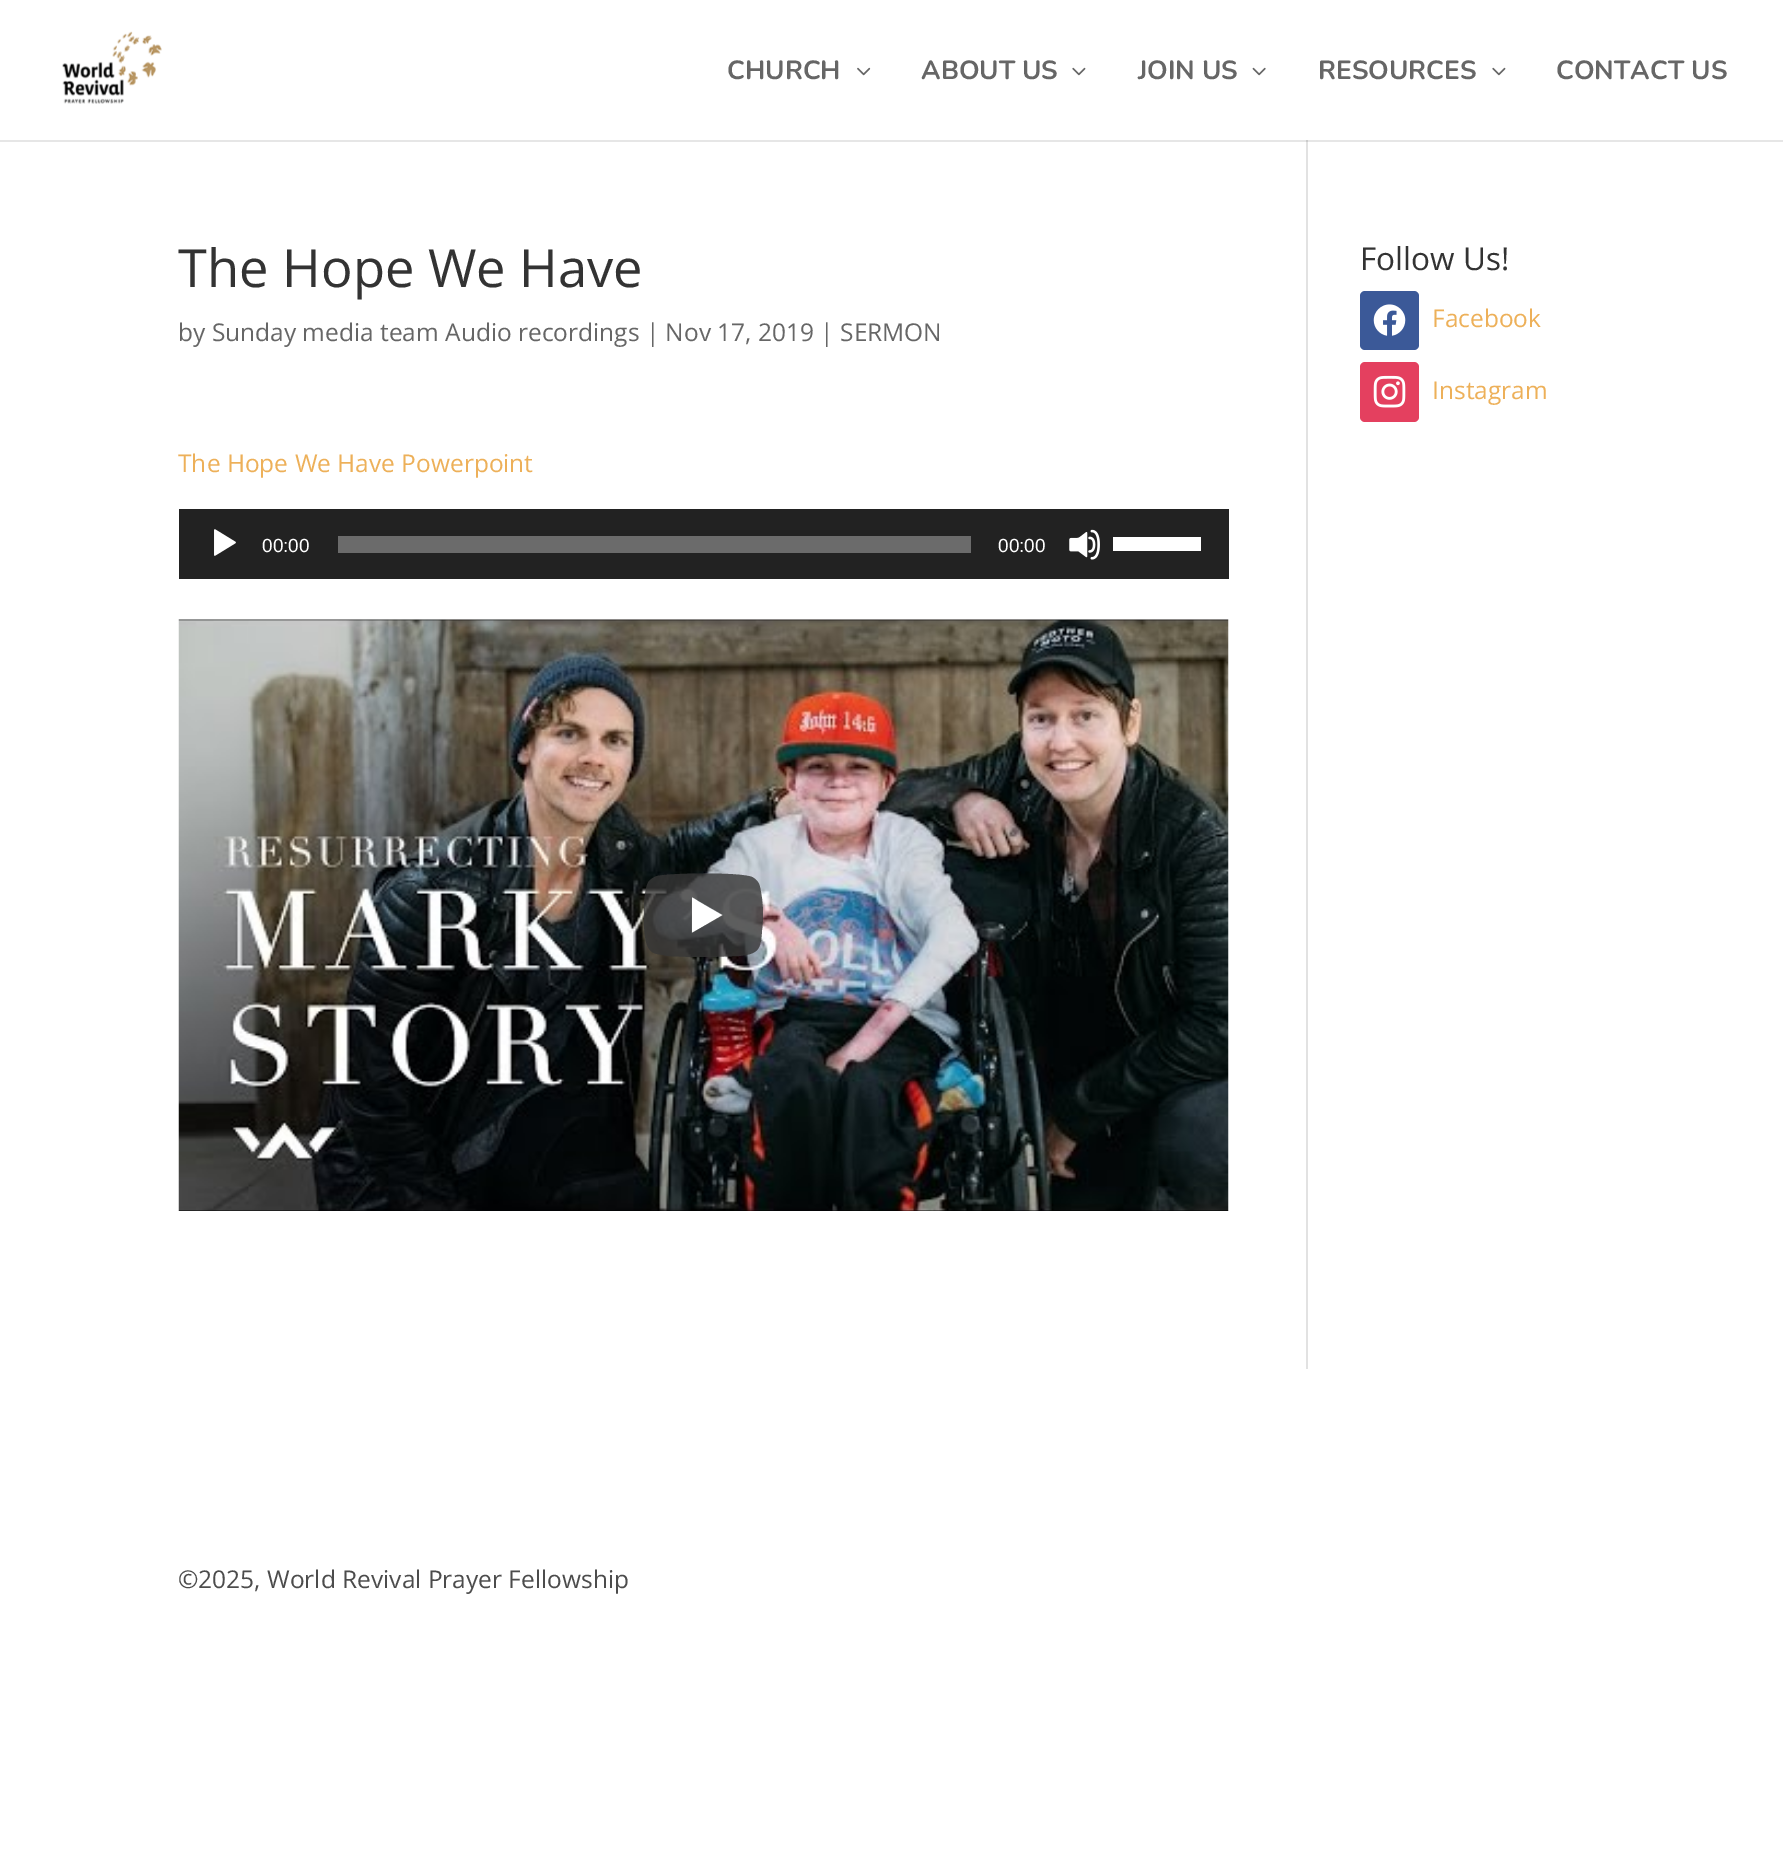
%!PS
<< /PageSize [1783 1864] /PageUsesTransparency true >> setpagedevice
/m/moveto load def
/l/rlineto load def
/c/rcurveto load def
/z/closepath load def
/f/fill load def
/C { dup -16 bitshift 255 div exch dup -8 bitshift 255 and 255 div exch 255 and 255 div setrgbcolor } def
/F { [ exch dup neg 0 0 3 -1 roll 0 0 ] selectfont } def
/T { moveto show } def
/R { rectfill } def
/A { dup .setfillconstantalpha .setstrokeconstantalpha } def
/Q { 5 dict begin { /r /h /w /y /x } { exch def } forall
  x r add y moveto x w add y 2 copy h add r arct x w add y h add x 1 index r arct
  x y h add x y r arct x y 2 copy exch w add exch r arct closepath end } def
/I { 5 dict begin { /h /w /y /x /name } { exch def } forall
  gsave x y translate w h scale
  w h 8 [w 0 0 h 0 0] name (r) file false 3 colorimage grestore end } def
0 .pushpdf14devicefilter
0 1864 translate 1 -1 scale
4 setmiterlimit
16#FFFFFF C
0 0 1783 1864 R
16#E6E6E6 C
0 140 1783 2 R
(1.rgb) 62 31 100 73 I
/Nunito-Bold 26.25 F
16#666666 C
(CHURCH) 727 79 T
(2.rgb) 857 67 14 9 I
(ABOUT US) 921 79 T
(3.rgb) 1072 67 14 9 I
(JOIN US) 1138 79 T
(4.rgb) 1252 67 14 9 I
(RESOURCES) 1318 79 T
(3.rgb) 1492 67 14 9 I
(CONTACT US) 1556 79 T
16#E2E2E2 C
1306 140 2 1229 R
16#CBCBCB C
1306 140 2 2 R
/OpenSans-Regular 52.5 F
16#333333 C
(The Hope We Have) 178 287 T
/OpenSans-Regular 24.5 F
16#666666 C
(by Sunday media team Audio recordings | Nov 17, 2019 | SERMON) 178 341 T
16#EDB059 C
(The Hope We Have Powerpoint) 178 472 T
16#222222 C
179 509 1050 70 R
(5.rgb) 214 529 22 27 I
/LiberationSans-Regular 19 F
16#FFFFFF C
(00:00) 262 552 T
16#6B6B6B C
338 536 633 17 R
16#FFFFFF C
(00:00) 998 552 T
(6.rgb) 1069 529 31 31 I
1113 537 88 14 R
(7.rgb) 178 619 1051 592 I
691.5 933 m 0 -35.5 l 31 18 l z f
0.8 A
16#363636 C
760 887 m -1 -5 -4 -8 -8 -10 c -12 -5 -82 -4 -95 -1 c -3 1 -6 3 -8 5 c -6 8 -5 35 -5 45 c 1 10 1 26 13 28 c 11 2 l 14 1 28 1 42 1 c 29 -1 l 20 -2 22 -7 23 -26 c 2 -15 1 -29 -2 -43 c 692 933 m 0 -36 l 31 18 l z f
/OpenSans-Regular 31.5 F
1 A
16#333333 C
(Follow Us!) 1360 270 T
16#3B5998 C
1360 291 59 59 5 Q f
(8.rgb) 1373 304 33 32 I
/OpenSans-Regular 24.5 F
16#EDB059 C
(Facebook) 1432 327 T
16#E4405F C
1360 362 59 60 5 Q f
(9.rgb) 1373 375 33 33 I
16#EDB059 C
(Instagram) 1432 399 T
16#4C4C4C C
(©2025, World Revival Prayer Fellowship) 178 1588 T
.poppdf14devicefilter showpage
